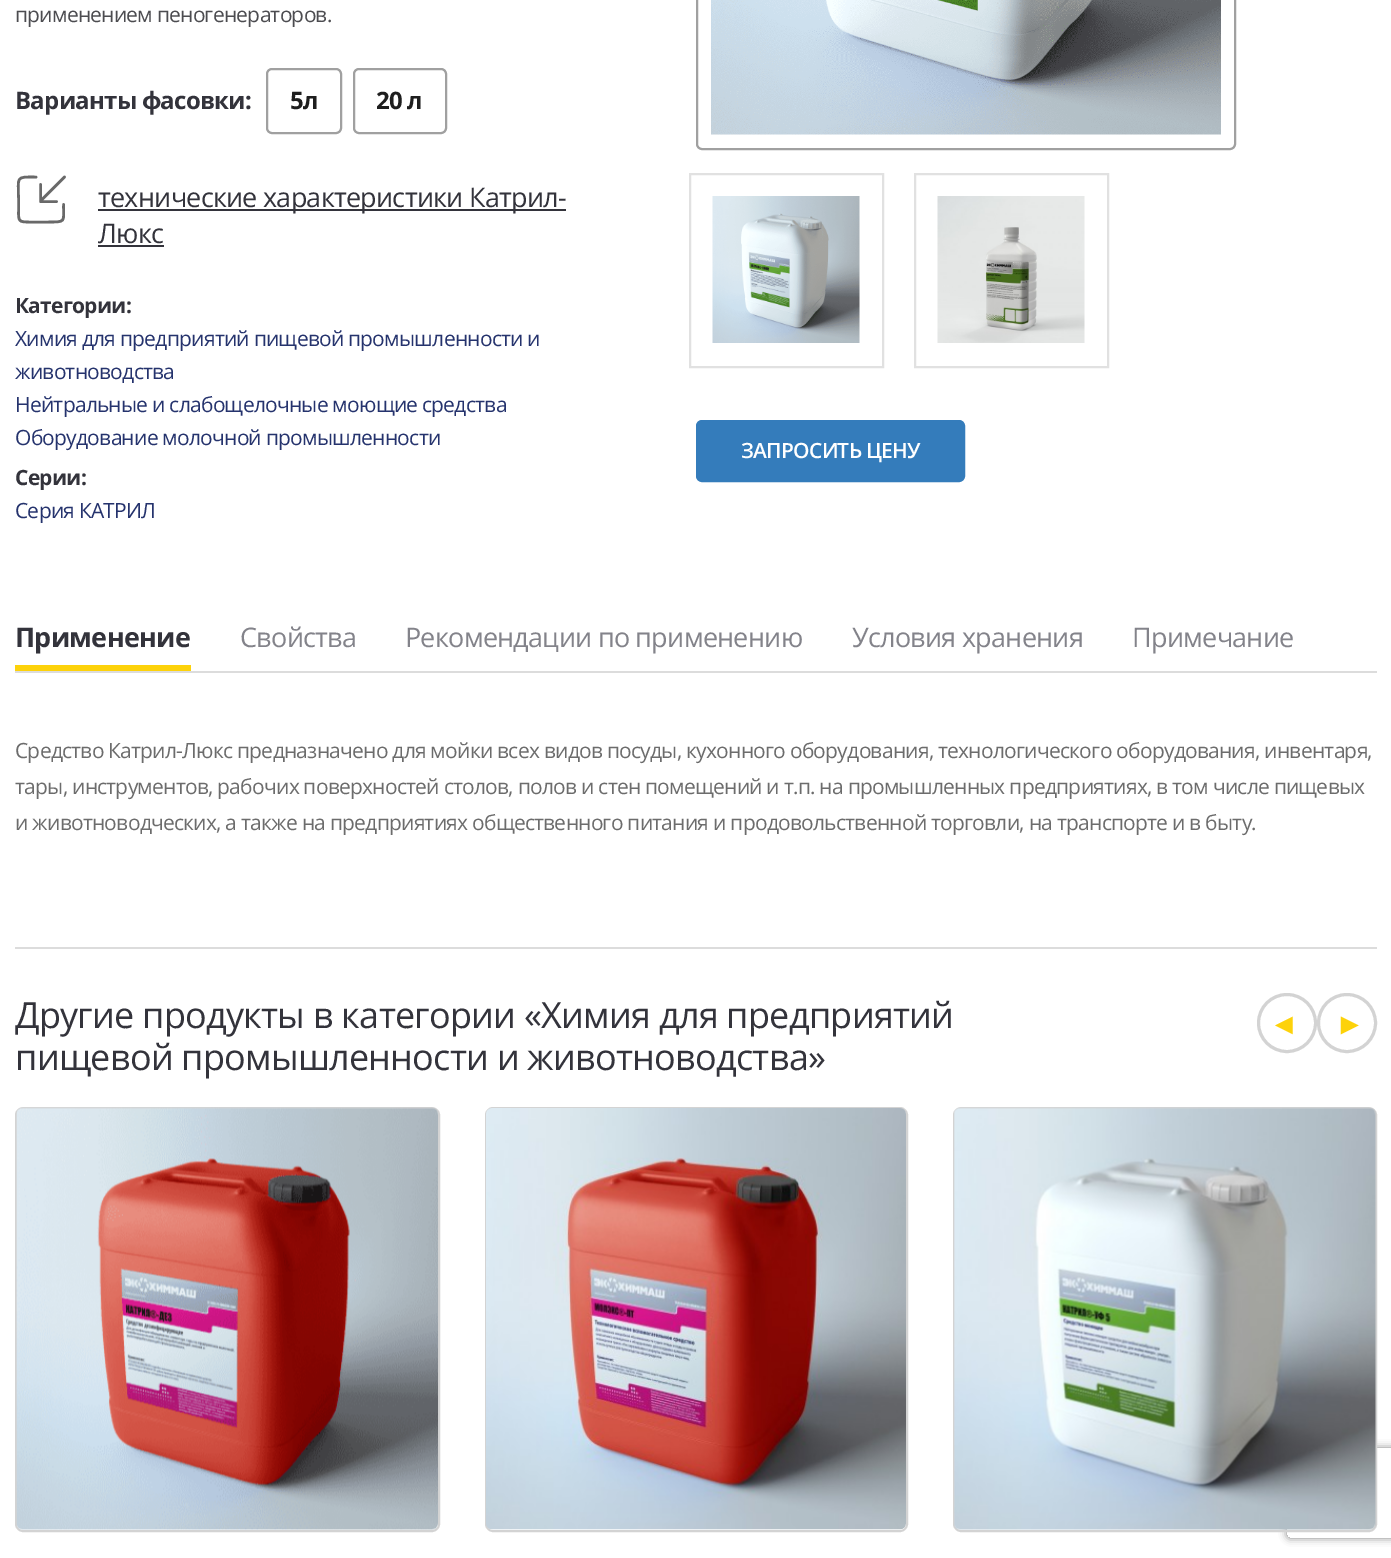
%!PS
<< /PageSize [1391 1558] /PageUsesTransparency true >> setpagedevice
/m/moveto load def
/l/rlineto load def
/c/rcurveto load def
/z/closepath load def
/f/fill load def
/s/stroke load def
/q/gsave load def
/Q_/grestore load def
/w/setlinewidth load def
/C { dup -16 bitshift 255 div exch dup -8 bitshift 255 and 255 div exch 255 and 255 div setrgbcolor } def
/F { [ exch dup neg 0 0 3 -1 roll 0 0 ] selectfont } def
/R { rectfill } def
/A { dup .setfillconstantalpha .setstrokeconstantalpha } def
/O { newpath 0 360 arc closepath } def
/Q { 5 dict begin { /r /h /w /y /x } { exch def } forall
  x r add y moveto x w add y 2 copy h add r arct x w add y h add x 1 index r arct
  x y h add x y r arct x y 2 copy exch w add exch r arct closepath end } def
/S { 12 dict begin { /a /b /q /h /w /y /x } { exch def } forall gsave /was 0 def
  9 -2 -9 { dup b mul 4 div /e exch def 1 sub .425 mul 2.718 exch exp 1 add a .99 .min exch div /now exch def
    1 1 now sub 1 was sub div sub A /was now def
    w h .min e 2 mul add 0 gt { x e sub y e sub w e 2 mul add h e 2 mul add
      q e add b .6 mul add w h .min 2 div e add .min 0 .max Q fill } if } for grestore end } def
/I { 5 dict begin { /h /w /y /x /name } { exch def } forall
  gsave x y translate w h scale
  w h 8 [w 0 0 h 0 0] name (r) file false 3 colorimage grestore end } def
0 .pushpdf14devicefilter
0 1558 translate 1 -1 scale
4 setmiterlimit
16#FFFFFF C
0 0 1391 1558 R
/OpenSans-Regular 21 F
16#4C4C50 C
15 22 m -.75 0 (применением пеногенераторов.) ashow
/OpenSans-Bold 24 F
16#33333B C
15 109 m -.75 0 (Варианты фасовки:) ashow
16#A0A0A0 C
2 w
267 69 74 64 5 Q s
16#1E1E1E C
290 109 m -.75 0 (5л) ashow
16#A0A0A0 C
354 69 92 64 5 Q s
16#1E1E1E C
376 109 m -.75 0 (20 л) ashow
16#696969 C
2.6 w
1 setlinecap
1 setlinejoin
63.5 204.5 m 0 18 3 17.5 -16.5 17.5 c -17.5 0 l -10.5 0 -11 -.5 -11 -11 c 0 -11.5 l 0 -23.5 -3.5 -22.5 17.5 -22.5 c 40.5 184.5 m 0 17 l 16 0 l 64.5 177 m -23.5 23.5 l s
16#33333B C
98 209 468 2 R
/OpenSans-Regular 27 F
98 207 m -.75 0 (технические характеристики Катрил-) ashow
98 243 m -.75 0 (Люкс) ashow
98 245 66 2 R
/OpenSans-Bold 21 F
15 313 m -.75 0 (Категории:) ashow
/OpenSans-Regular 21 F
16#25336D C
15 346 m -.75 0 (Химия для предприятий пищевой промышленности и) ashow
15 379 m -.75 0 (животноводства) ashow
15 412 m -.75 0 (Нейтральные и слабощелочные моющие средства) ashow
15 445 m -.75 0 (Оборудование молочной промышленности) ashow
/OpenSans-Bold 21 F
16#33333B C
15 485 m -.75 0 (Серии:) ashow
/OpenSans-Regular 21 F
16#25336D C
15 518 m -.75 0 (Серия КАТРИЛ) ashow
16#A0A0A0 C
2 w
0 setlinecap
0 setlinejoin
697 -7 538 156 5 Q s
(1.rgb) 711 0 510 135 I
16#E1E1E1 C
690 174 193 193 rectstroke
(2.rgb) 712 196 148 147 I
915 174 193 193 rectstroke
(3.rgb) 937 196 148 147 I
16#347CBB C
697.5 421.5 266 59 4.5 Q q f Q_
3 w
s
/OpenSans-SemiBold 21 F
16#FFFFFF C
741 458 m -.75 0 (ЗАПРОСИТЬ ЦЕНУ) ashow
16#DCDCDC C
15 947 1362 2 R
15 671 1362 2 R
/OpenSans-Bold 27 F
16#33333B C
15 647 m -.75 0 (Применение) ashow
16#FDD20A C
15 665 176 6 R
/OpenSans-Regular 27 F
16#83838A C
240 647 m -.75 0 (Свойства) ashow
405 647 m -.75 0 (Рекомендации по применению) ashow
852 647 m -.75 0 (Условия хранения) ashow
1132 647 m -.75 0 (Примечание) ashow
/OpenSans-Regular 21 F
16#6C6C6C C
15 758 m -.75 0 (Средство Катрил-Люкс предназначено для мойки всех видов посуды, кухонного оборудования, технологического оборудования, инвентаря,) ashow
15 794 m -.75 0 (тары, инструментов, рабочих поверхностей столов, полов и стен помещений и т.п. на промышленных предприятиях, в том числе пищевых) ashow
15 830 m -.75 0 (и животноводческих, а также на предприятиях общественного питания и продовольственной торговли, на транспорте и в быту.) ashow
/OpenSans-Regular 36 F
16#33333B C
15 1028 m -.75 0 (Другие продукты в категории «Химия для предприятий) ashow
15 1070 m -.75 0 (пищевой промышленности и животноводства») ashow
16#D3D3D3 C
1287 1023 28.5 O s
/LiberationSans-Regular 30 F
16#FDD20A C
1269 1034 m -.75 0 (◄) ashow
16#D3D3D3 C
1347 1023 28.5 O s
16#FDD20A C
1335 1034 m -.75 0 (►) ashow
16#D3D3D3 C
2 w
16 1108 423 423 7 Q s
(4.rgb) 16 1107 422 423 I
486 1108 421 423 7 Q s
(5.rgb) 486 1108 420 422 I
q
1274 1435 m 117 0 l 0 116 l -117 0 l z 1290 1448 m 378 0 l 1.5 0 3 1.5 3 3 c 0 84 l 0 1.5 -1.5 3 -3 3 c -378 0 l -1.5 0 -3 -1.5 -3 -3 c 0 -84 l 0 -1.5 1.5 -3 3 -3 c z eoclip newpath
16#808080 C
1287 1448 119 90 3 4 1 S
Q_
954 1108 422 423 7 Q s
(6.rgb) 954 1107 422 423 I
.poppdf14devicefilter showpage
